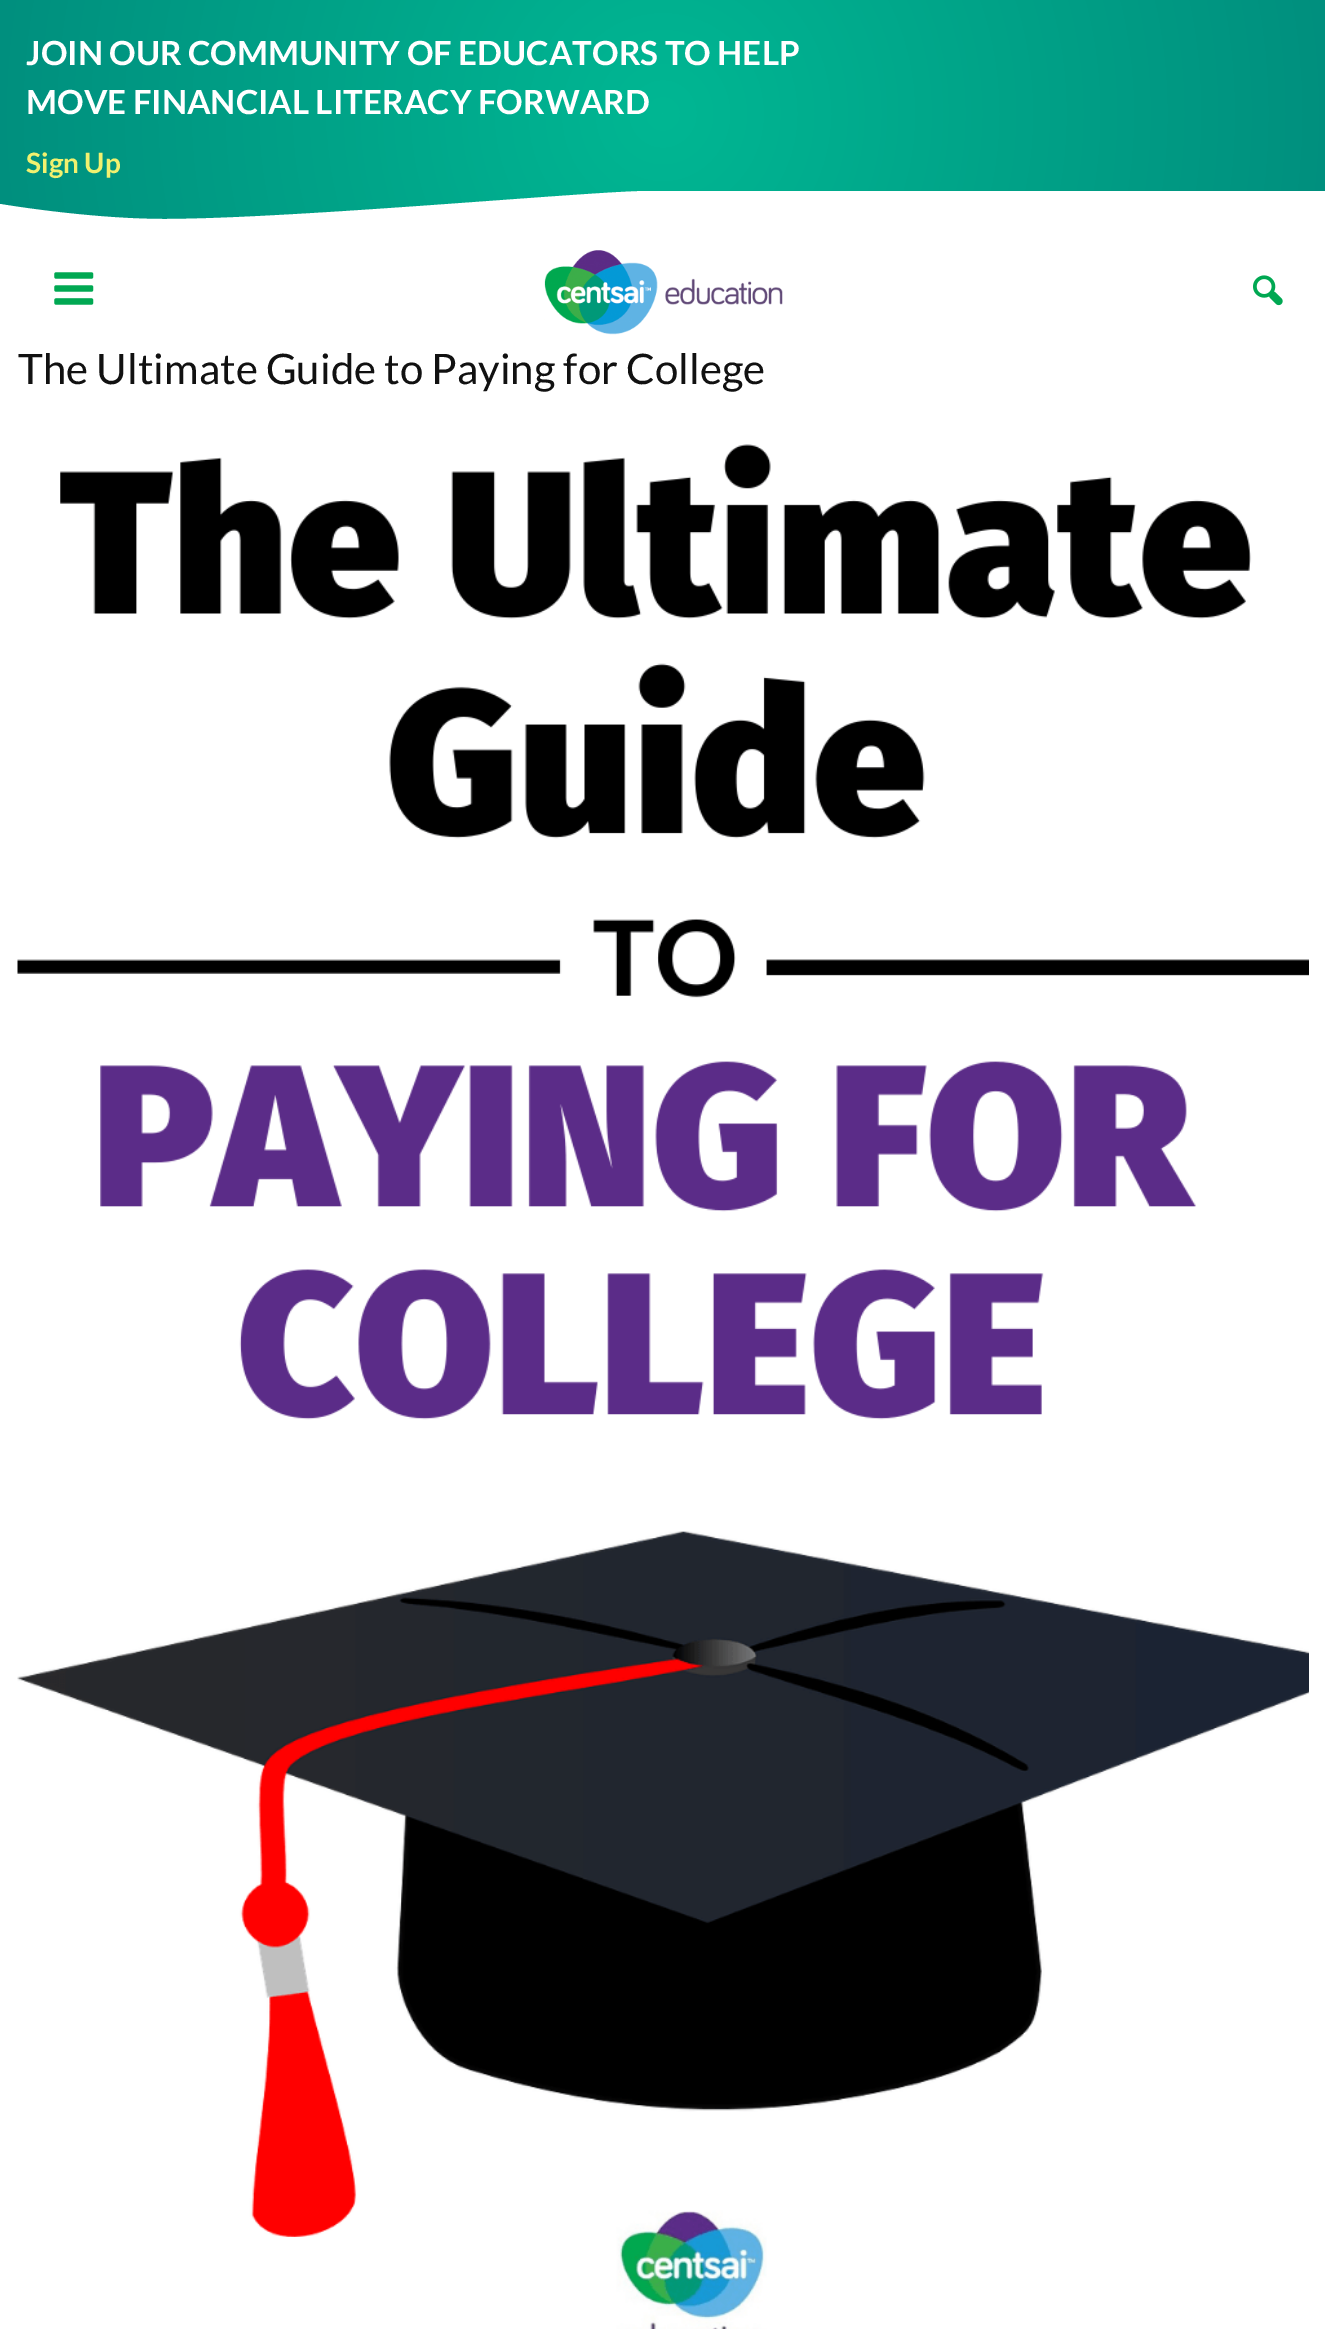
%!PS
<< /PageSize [1325 2329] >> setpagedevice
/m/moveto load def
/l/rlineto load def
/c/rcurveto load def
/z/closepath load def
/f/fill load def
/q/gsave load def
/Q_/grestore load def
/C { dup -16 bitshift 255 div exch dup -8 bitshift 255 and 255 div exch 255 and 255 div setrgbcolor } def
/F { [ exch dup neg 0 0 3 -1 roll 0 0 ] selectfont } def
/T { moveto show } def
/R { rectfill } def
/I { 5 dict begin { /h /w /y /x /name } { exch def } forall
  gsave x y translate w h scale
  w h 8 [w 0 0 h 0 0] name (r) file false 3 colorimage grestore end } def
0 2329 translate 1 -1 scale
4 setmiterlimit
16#FFFFFF C
0 0 1325 2329 R
q 0 0 m 1325 0 l 0 219 l -1325 0 l z clip newpath 663 114 translate 673 673 scale
<< /ShadingType 3 /ColorSpace /DeviceRGB /Coords [0 0 0 0 0 1] /Extend [true true] /Function << /FunctionType 2 /Domain [0 1] /C0 [0 .718 .576] /C1 [0 .561 .494] /N 1 >> >> shfill Q_
/Lato-Bold 33.25 F
(JOIN OUR COMMUNITY OF EDUCATORS TO HELP) 26 65 T
(MOVE FINANCIAL LITERACY FORWARD) 26 114 T
/Lato-Bold 28 F
16#F1F16F C
(Sign Up) 26 173 T
q
0 191 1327 40 rectclip
16#FFFFFF C
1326 232 m -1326 0 l 0 -28 l 0 0 88 15 164 15 c 129 0 430 -28 484 -28 c 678 0 l z f
Q_
(1.rgb) 54 272 40 33 I
(2.rgb) 544 250 239 85 I
(3.rgb) 1253 275 30 31 I
/Lato-Regular 42 F
16#111111 C
(The Ultimate Guide to Paying for College) 18 384 T
(4.rgb) 17 444 1292 1885 I
showpage
